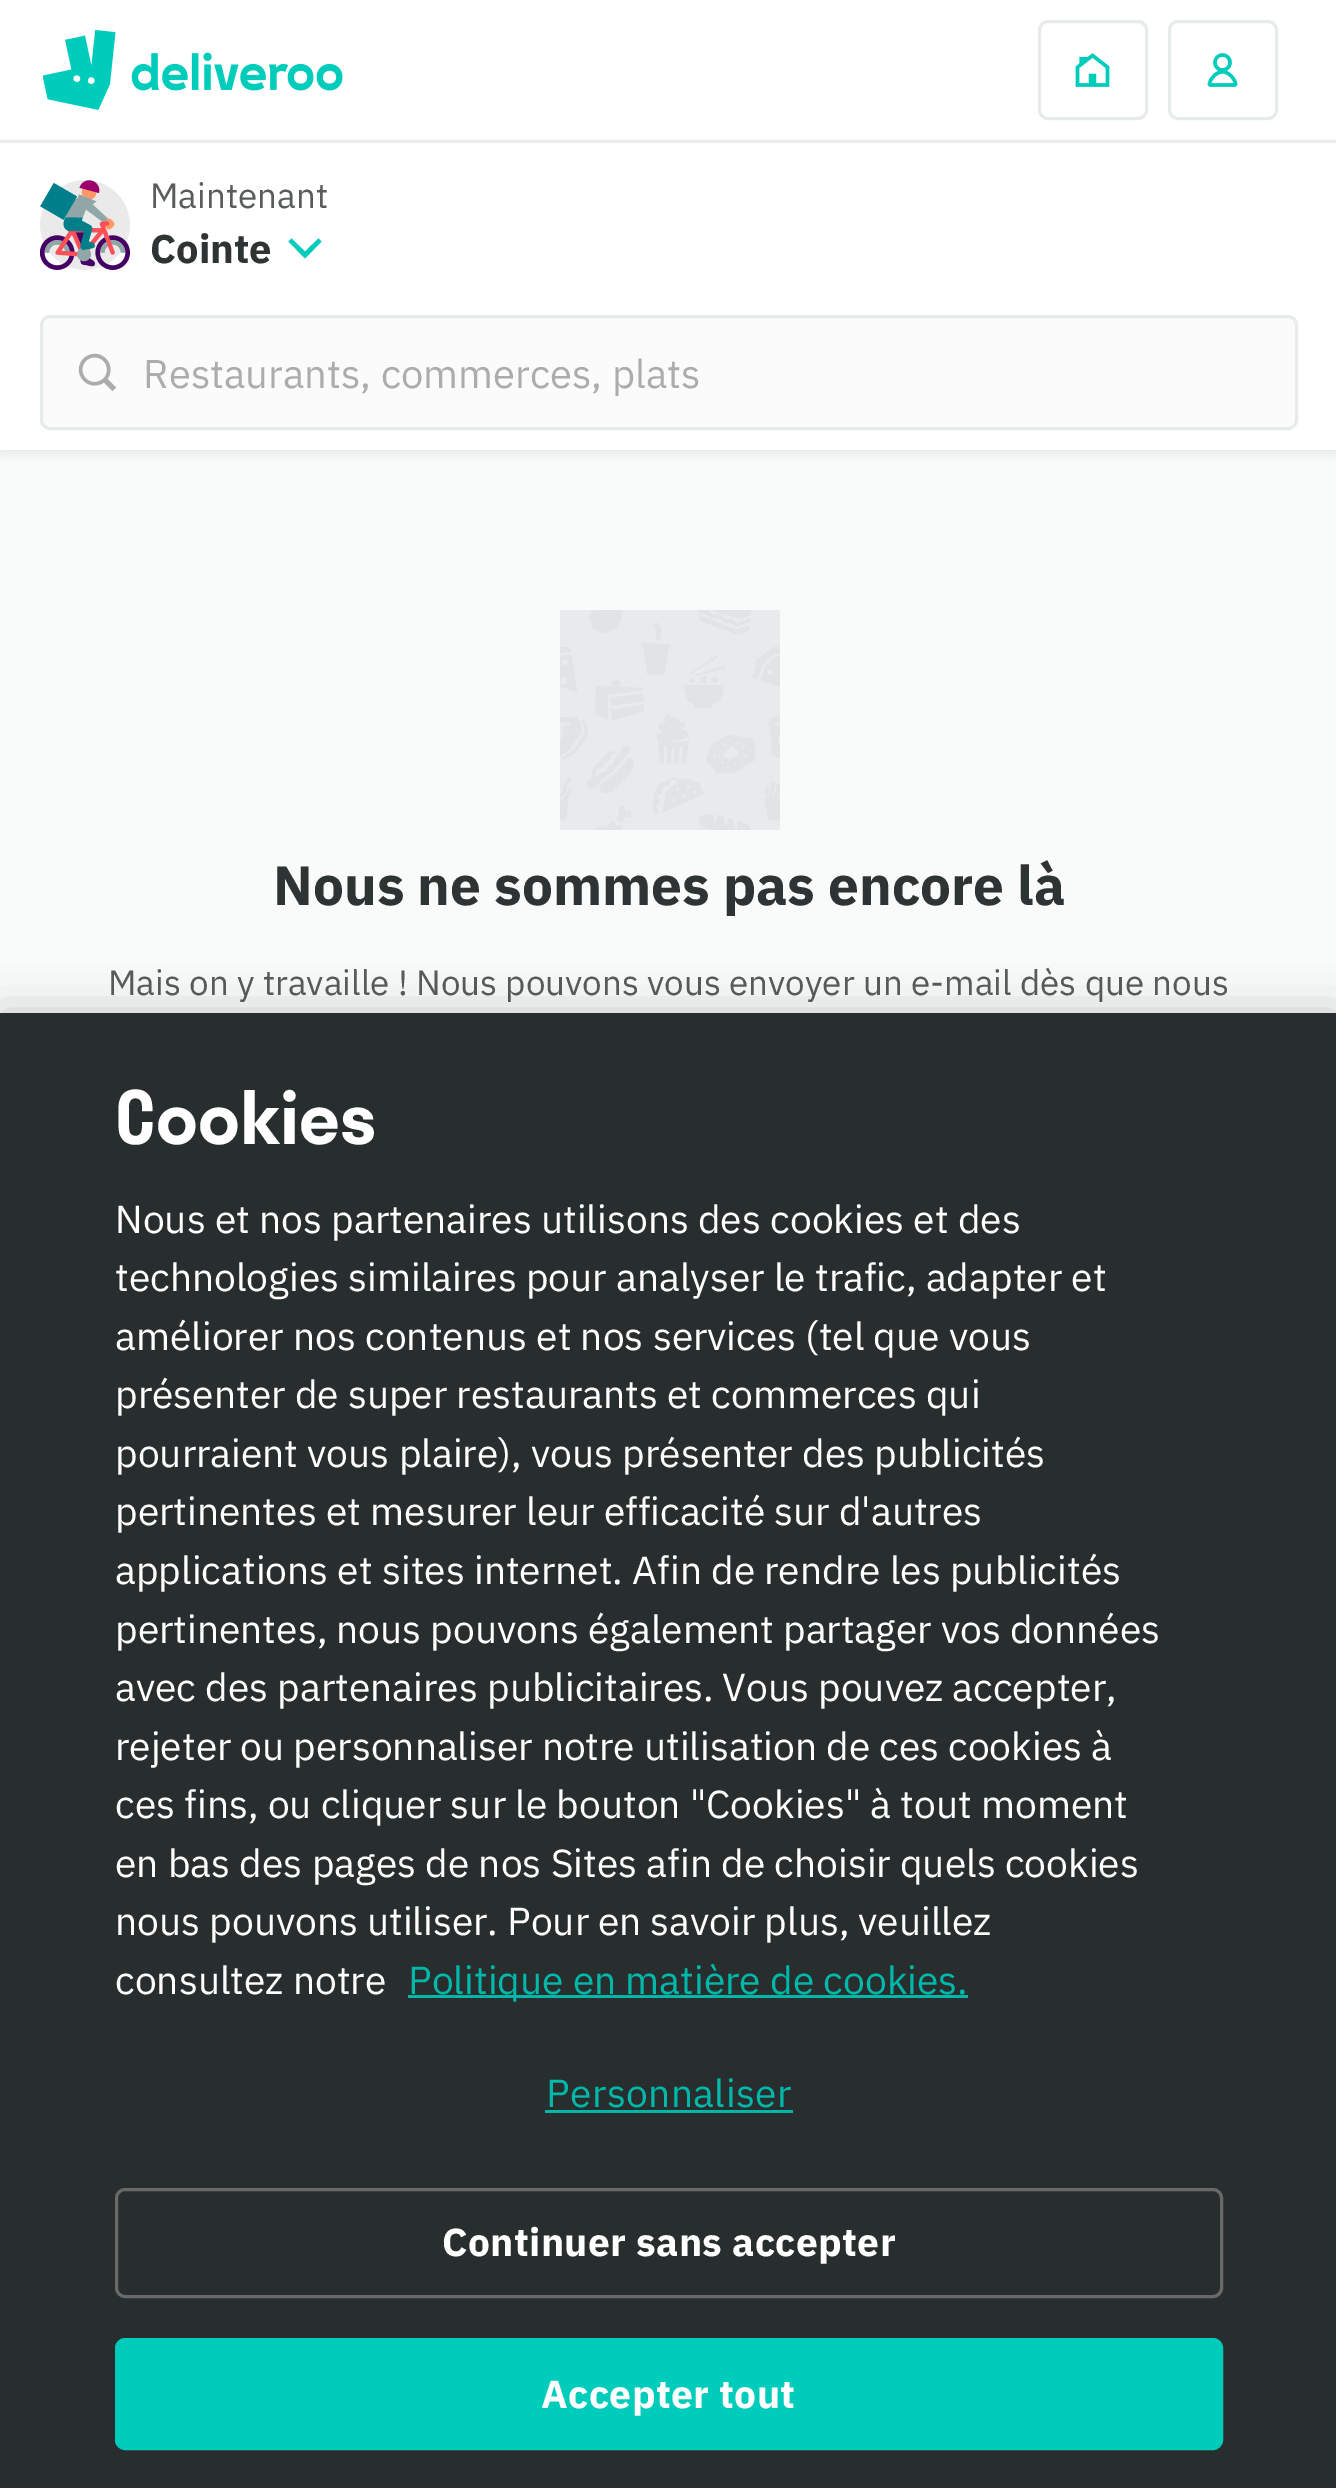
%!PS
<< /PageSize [1336 2488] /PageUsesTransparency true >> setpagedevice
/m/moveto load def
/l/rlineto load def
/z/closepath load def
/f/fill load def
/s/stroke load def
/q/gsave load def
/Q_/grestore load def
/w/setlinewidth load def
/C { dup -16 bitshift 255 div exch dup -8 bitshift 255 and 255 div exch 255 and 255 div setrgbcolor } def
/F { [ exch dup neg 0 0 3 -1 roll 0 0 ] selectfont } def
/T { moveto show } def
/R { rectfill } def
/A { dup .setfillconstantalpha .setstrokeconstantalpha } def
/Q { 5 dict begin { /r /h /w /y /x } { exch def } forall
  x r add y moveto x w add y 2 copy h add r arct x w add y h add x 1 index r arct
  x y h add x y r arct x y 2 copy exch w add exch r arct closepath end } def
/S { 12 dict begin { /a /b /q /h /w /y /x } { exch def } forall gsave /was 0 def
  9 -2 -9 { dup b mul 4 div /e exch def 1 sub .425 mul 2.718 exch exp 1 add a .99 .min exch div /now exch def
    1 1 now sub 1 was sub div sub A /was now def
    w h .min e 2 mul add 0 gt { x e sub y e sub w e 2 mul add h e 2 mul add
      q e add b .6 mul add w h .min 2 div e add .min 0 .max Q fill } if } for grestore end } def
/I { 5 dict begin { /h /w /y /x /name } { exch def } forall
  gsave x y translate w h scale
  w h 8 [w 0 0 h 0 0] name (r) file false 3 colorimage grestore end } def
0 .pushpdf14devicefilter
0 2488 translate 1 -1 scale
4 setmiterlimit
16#FFFFFF C
0 0 1336 2488 R
16#F9FAFA C
0 450 1336 563 R
16#000000 C
0 145 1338 308 0 5 .08 S
16#EBEBEB C
0 140 1336 3 R
(1.rgb) 43 30 300 80 I
16#E8EBEB C
3 w
1039.5 21.5 107 97 8.5 Q s
(2.rgb) 1075 53 35 34 I
1169.5 21.5 107 97 8.5 Q s
(3.rgb) 1207 53 31 34 I
16#FFFFFF C
0 143 1336 307 R
(4.rgb) 40 180 90 90 I
/IBMPlexSans-Regular 35 F
16#585C5C C
(Maintenant) 150 208 T
/IBMPlexSans-Bold 40 F
16#2E3333 C
(Cointe) 150 263 T
16#00CCBC C
291.5 238.5 m -3 3 l 16.5 17 l 16.5 -17 l -3 -3 l -13.5 13 l z f
16#FBFBFB C
41.5 316.5 1255 112 8.5 Q q f Q_
16#E8EBEB C
s
(5.rgb) 78 353 39 39 I
/IBMPlexSans-Regular 40 F
16#ABADAD C
(Restaurants, commerces, plats) 143 388 T
(6.rgb) 560 610 220 220 I
/IBMPlexSans-Bold 55 F
16#2E3333 C
(Nous ne sommes pas encore là) 273 905 T
/IBMPlexSans-Regular 35 F
16#585C5C C
(Mais on y travaille ! Nous pouvons vous envoyer un e-mail dès que nous) 108 995 T
16#000000 C
0 1013 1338 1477 0 22.5 .2 S
16#282D2D C
0 1013 1336 1475 R
/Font-SemiBold 72 F
16#FFFFFF C
(Cookies) 115 1144 T
/IBMPlexSans-Regular 39 F
(Nous et nos partenaires utilisons des cookies et des) 115 1233 T
(technologies similaires pour analyser le trafic, adapter et) 115 1291 T
(améliorer nos contenus et nos services \(tel que vous) 115 1350 T
(présenter de super restaurants et commerces qui) 115 1408 T
(pourraient vous plaire\), vous présenter des publicités) 115 1467 T
(pertinentes et mesurer leur efficacité sur d'autres) 115 1525 T
(applications et sites internet. Afin de rendre les publicités) 115 1584 T
115 1643 m -.25 0 32 (pertinentes, nous pouvons également partager vos données) widthshow
(avec des partenaires publicitaires.) 115 1701 T
(Vous pouvez accepter,) 722 1701 T
115 1760 m -.25 0 32 (rejeter ou personnaliser notre utilisation de ces cookies à) widthshow
(ces fins, ou cliquer sur le bouton "Cookies" à tout moment) 115 1818 T
(en bas des pages de nos Sites afin de choisir quels cookies) 115 1877 T
115 1935 m -.25 0 32 (nous pouvons utiliser. Pour en savoir plus, veuillez) widthshow
(consultez notre) 115 1994 T
16#00B8A9 C
408 1995 560 3 R
(Politique en matière de cookies.) 408 1994 T
546 2107 m .4 0 (Personnaliser) ashow
545 2110 248 3 R
16#696969 C
116.5 2189.5 1105 107 8.5 Q s
/IBMPlexSans-Bold 39 F
16#FFFFFF C
442 2256 m .4 0 (Continuer sans accepter) ashow
16#00CCBC C
116.5 2339.5 1105 109 8.5 Q q f Q_
s
16#FFFFFF C
541 2408 m .4 0 (Accepter tout) ashow
.poppdf14devicefilter showpage
